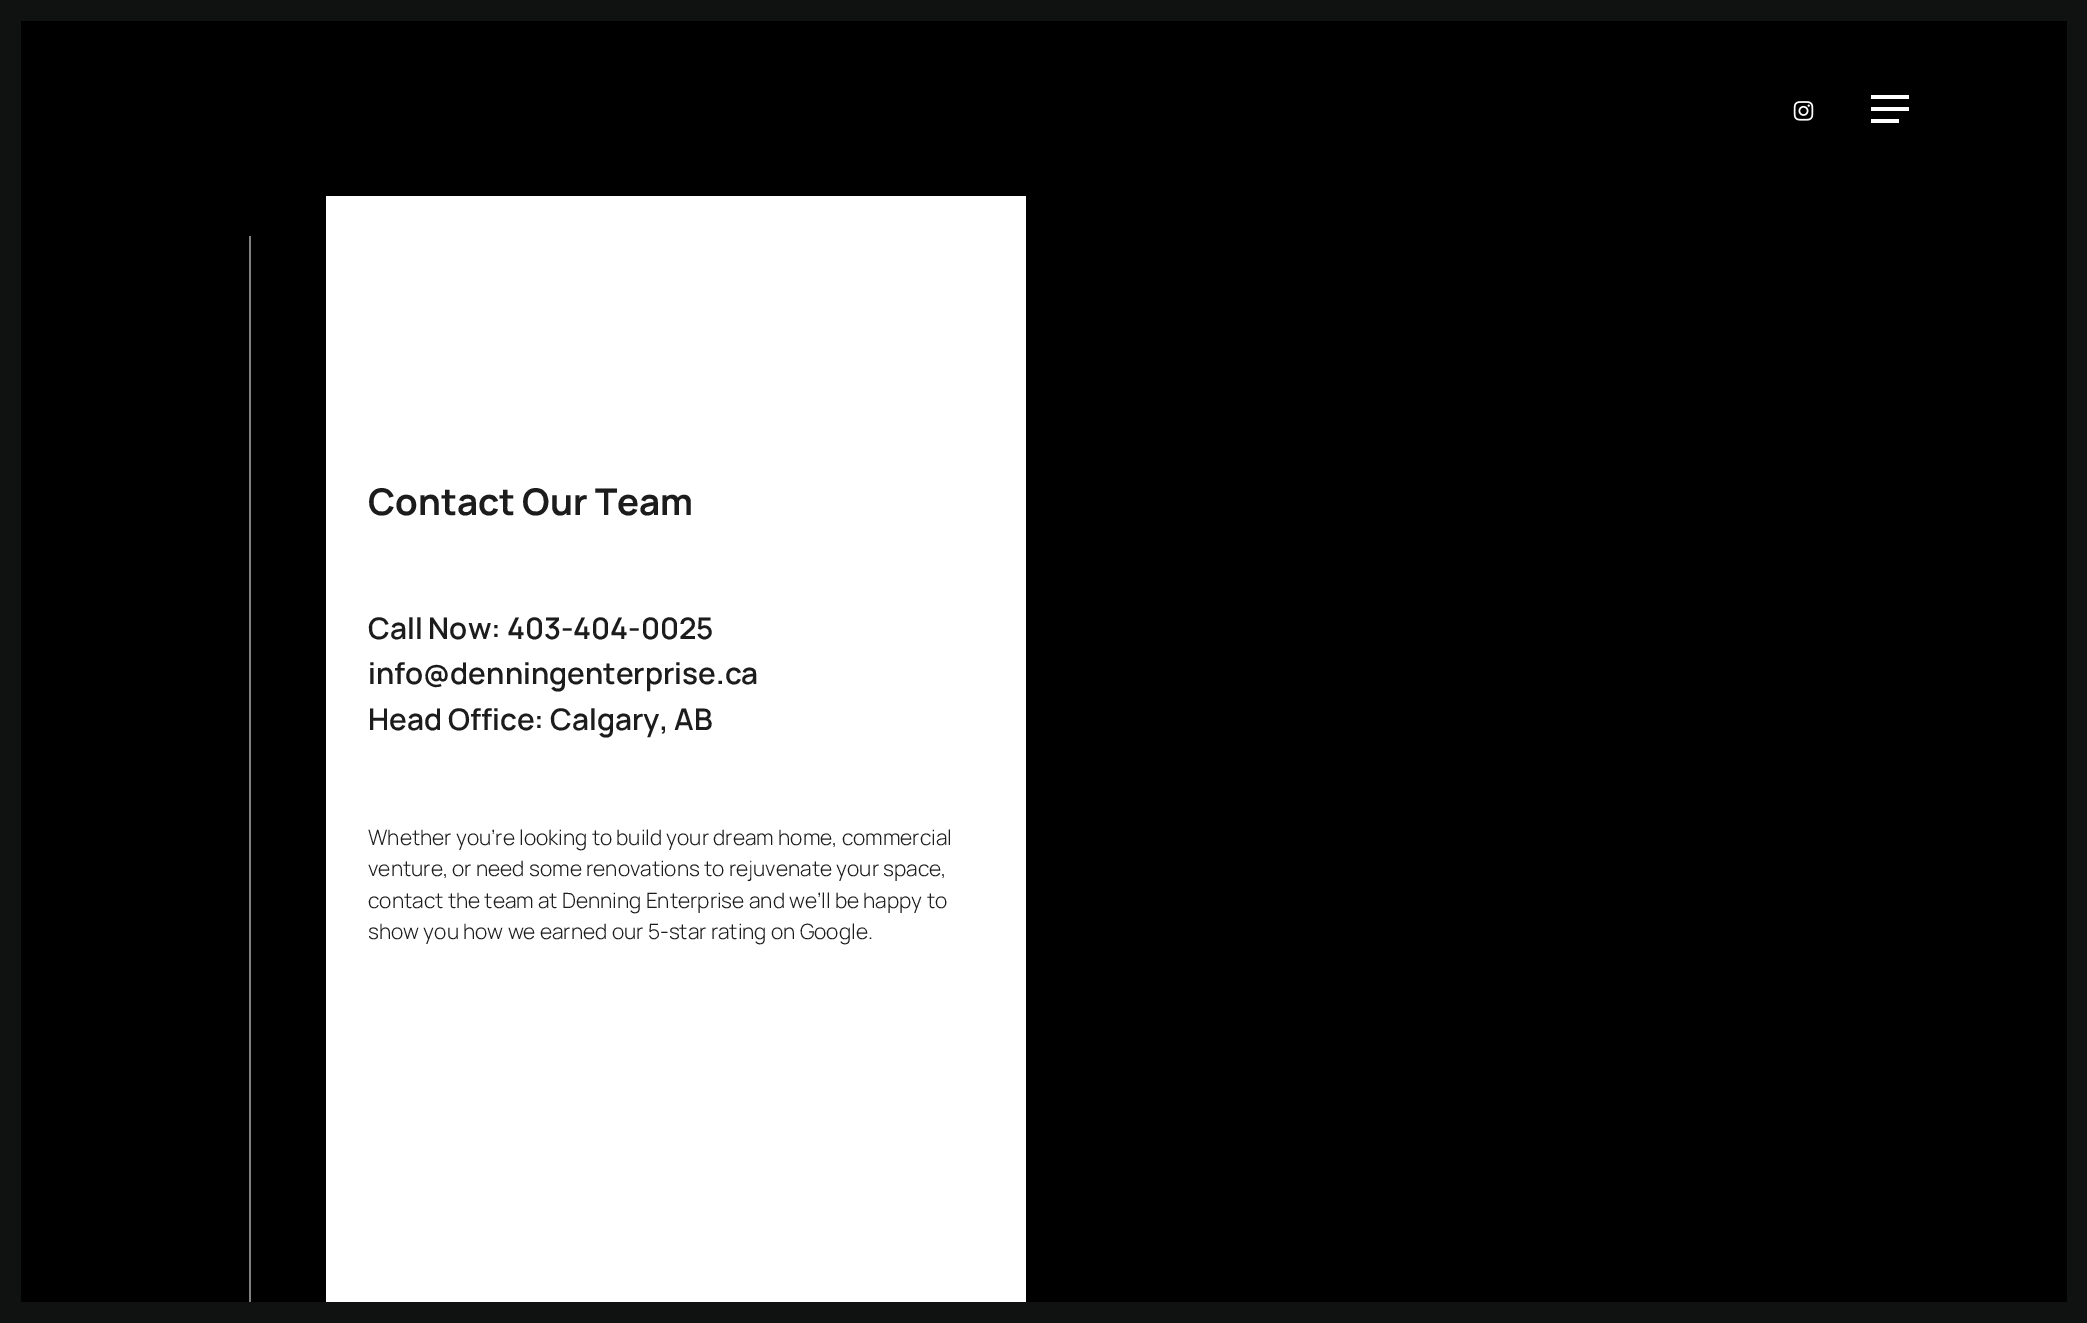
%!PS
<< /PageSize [2087 1323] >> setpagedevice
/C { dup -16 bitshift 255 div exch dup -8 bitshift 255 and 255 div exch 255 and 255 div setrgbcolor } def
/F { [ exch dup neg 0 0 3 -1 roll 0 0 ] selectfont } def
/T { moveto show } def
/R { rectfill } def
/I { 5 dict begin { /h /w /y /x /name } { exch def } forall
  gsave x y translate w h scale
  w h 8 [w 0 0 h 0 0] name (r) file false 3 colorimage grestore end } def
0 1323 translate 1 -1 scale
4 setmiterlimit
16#000000 C
0 0 2087 1323 R
16#101211 C
0 0 21 1323 R
21 0 2046 21 R
2067 0 20 1302 R
(1.rgb) 1793 101 21 20 I
16#FFFFFF C
1871 95 38 4 R
1871 119 28 4 R
1871 107 38 4 R
16#808080 C
249 236 2 1066 R
16#FFFFFF C
326 196 700 1106 R
/Manrope-Bold 36.75 F
16#1C1C1C C
(Contact Our Team) 368 515 T
/Manrope-SemiBold 29.75 F
(Call Now: 403-404-0025) 368 639 T
(info@denningenterprise.ca) 368 684 T
(Head Office: Calgary, AB) 368 730 T
/Manrope-Light 21 F
(Whether you’re looking to build your dream home, commercial) 368 845 T
(venture, or need some renovations to rejuvenate your space,) 368 876 T
(contact the team at Denning Enterprise and we’ll be happy to) 368 908 T
(show you how we earned our 5-star rating on Google.) 368 939 T
16#101211 C
21 1302 2066 21 R
showpage
